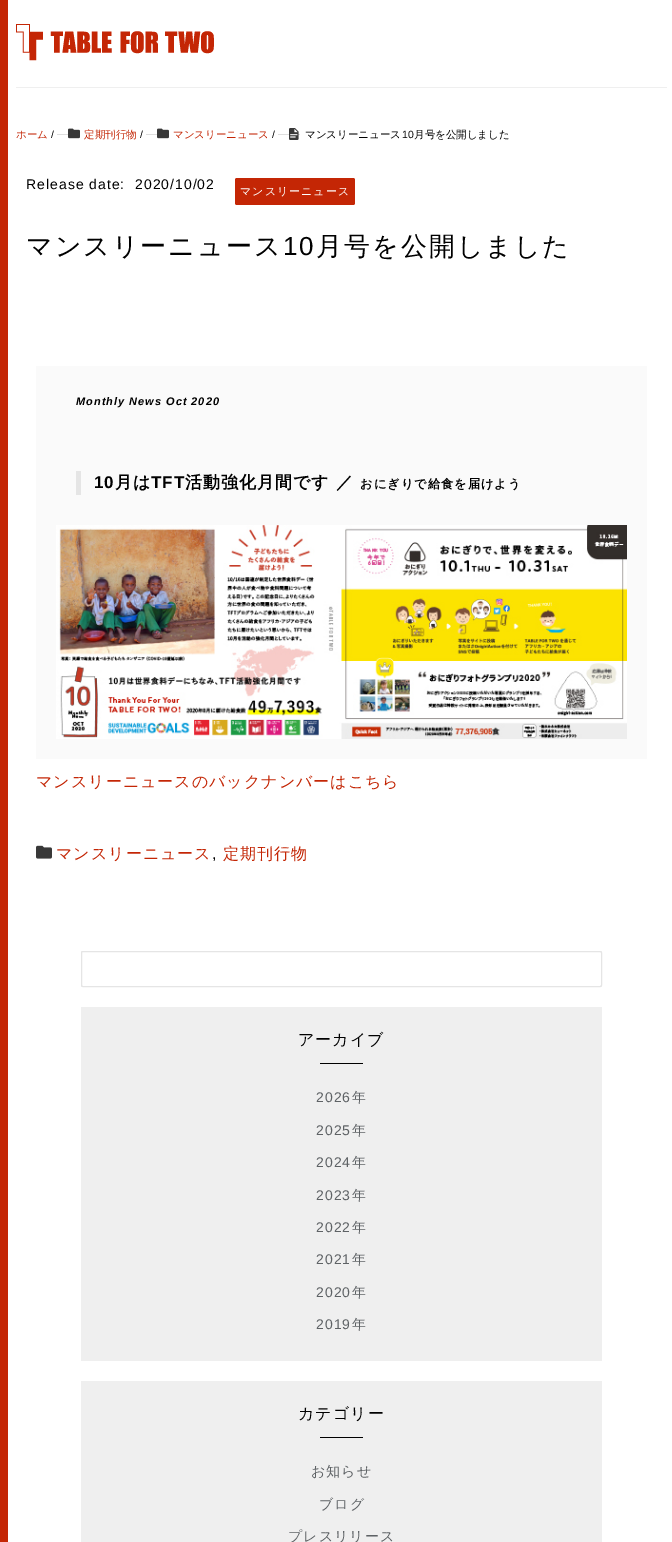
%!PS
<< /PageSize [672 1542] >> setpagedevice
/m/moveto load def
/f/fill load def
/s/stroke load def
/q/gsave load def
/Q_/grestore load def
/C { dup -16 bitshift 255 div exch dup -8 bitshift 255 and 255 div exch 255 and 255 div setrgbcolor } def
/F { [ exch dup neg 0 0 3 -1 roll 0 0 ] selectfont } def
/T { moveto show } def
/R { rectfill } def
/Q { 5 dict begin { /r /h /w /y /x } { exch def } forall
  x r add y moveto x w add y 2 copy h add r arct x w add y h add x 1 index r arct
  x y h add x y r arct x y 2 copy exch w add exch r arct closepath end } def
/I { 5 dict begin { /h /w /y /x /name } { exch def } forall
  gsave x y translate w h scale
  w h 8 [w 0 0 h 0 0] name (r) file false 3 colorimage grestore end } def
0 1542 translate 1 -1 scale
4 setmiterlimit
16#FFFFFF C
0 0 672 1542 R
16#C42605 C
0 0 8 1542 R
16#EFEFEF C
16 87 651 1 R
(1.rgb) 16 24 198 37 I
/WenQuanYiZenHei-Medium 10.5 F
16#C42605 C
(ホーム) 16 138 T
/LiberationSans-Regular 10.5 F
16#000000 C
(/) 51 138 T
16#DEDEDE C
57 134 11 1 R
(2.rgb) 68 128 12 11 I
/WenQuanYiZenHei-Medium 10.5 F
16#C42605 C
(定期刊行物) 84 138 T
/LiberationSans-Regular 10.5 F
16#000000 C
(/) 140 138 T
16#DEDEDE C
146 134 11 1 R
(2.rgb) 157 128 12 11 I
/WenQuanYiZenHei-Medium 10.5 F
16#C42605 C
(マンスリーニュース) 173 138 T
/LiberationSans-Regular 10.5 F
16#000000 C
(/) 272 138 T
16#DEDEDE C
278 134 22 1 R
(3.rgb) 289 128 10 12 I
/WenQuanYiZenHei-Medium 10.5 F
16#000000 C
(マンスリーニュース) 305 138 T
/LiberationSans-Regular 10.5 F
(10) 402 138 T
/WenQuanYiZenHei-Medium 10.5 F
(月号を公開しました) 414 138 T
/LiberationSans-Regular 14 F
26 189 m 1 0 (Release date:) ashow
135 189 m 1 0 (2020/10/02) ashow
16#C42605 C
235 178 120 27 2 Q f
/WenQuanYiZenHei-Medium 11 F
16#FFFFFF C
240 195 m 1 0 (マンスリーニュース) ashow
/WenQuanYiZenHei-Medium 26 F
16#000000 C
26 255 m 2 0 (マンスリーニュース) ashow
/LiberationSans-Regular 26 F
283 255 m 2 0 (10) ashow
/WenQuanYiZenHei-Medium 26 F
316 255 m 2 0 (月号を公開しました) ashow
16#FAFAFA C
36 366 611 393 R
/LiberationSans-BoldItalic 11 F
16#000000 C
76 405 m 1 0 (Monthly News Oct 2020) ashow
16#E5E5E5 C
76 471 5 24 R
/LiberationSans-Bold 17 F
16#000000 C
94 488 m 1 0 (10) ashow
/WenQuanYiZenHei-Bold 17 F
115 488 m 1 0 (月は) ashow
/LiberationSans-Bold 17 F
151 488 m 1 0 (TFT) ashow
/WenQuanYiZenHei-Bold 17 F
185 488 m 1 0 (活動強化月間です) ashow
336 488 m 1 0 (／) ashow
/WenQuanYiZenHei-Bold 12.25 F
360 488 m 1 0 (おにぎりで給食を届けよう) ashow
(4.rgb) 56 525 571 214 I
/WenQuanYiZenHei-Medium 16 F
16#C42605 C
36 787 m 1 0 (マンスリーニュースのバックナンバーはこちら) ashow
(5.rgb) 36 845 16 14 I
56 859 m 1 0 (マンスリーニュース) ashow
/LiberationSans-Regular 16 F
16#000000 C
212 859 m 1 0 (,) ashow
/WenQuanYiZenHei-Medium 16 F
16#C42605 C
223 859 m 1 0 (定期刊行物) ashow
16#EFEFEF C
81 951 521 36 R
16#FFFFFF C
81.5 951.5 520 35 1.5 Q q f Q_
16#E5E5E5 C
s
16#EFEFEF C
81 1007 521 354 R
16#000000 C
298 1045 m 1 0 (アーカイブ) ashow
320 1063 43 1 R
/LiberationSans-Regular 14 F
16#5E6265 C
316 1102 m 1 0 (2026) ashow
/WenQuanYiZenHei-Medium 14 F
352 1102 m 1 0 (年) ashow
/LiberationSans-Regular 14 F
316 1135 m 1 0 (2025) ashow
/WenQuanYiZenHei-Medium 14 F
352 1135 m 1 0 (年) ashow
/LiberationSans-Regular 14 F
316 1167 m 1 0 (2024) ashow
/WenQuanYiZenHei-Medium 14 F
352 1167 m 1 0 (年) ashow
/LiberationSans-Regular 14 F
316 1200 m 1 0 (2023) ashow
/WenQuanYiZenHei-Medium 14 F
352 1200 m 1 0 (年) ashow
/LiberationSans-Regular 14 F
316 1232 m 1 0 (2022) ashow
/WenQuanYiZenHei-Medium 14 F
352 1232 m 1 0 (年) ashow
/LiberationSans-Regular 14 F
316 1264 m 1 0 (2021) ashow
/WenQuanYiZenHei-Medium 14 F
352 1264 m 1 0 (年) ashow
/LiberationSans-Regular 14 F
316 1297 m 1 0 (2020) ashow
/WenQuanYiZenHei-Medium 14 F
352 1297 m 1 0 (年) ashow
/LiberationSans-Regular 14 F
316 1329 m 1 0 (2019) ashow
/WenQuanYiZenHei-Medium 14 F
352 1329 m 1 0 (年) ashow
16#EFEFEF C
81 1381 521 161 R
/WenQuanYiZenHei-Medium 16 F
16#000000 C
298 1419 m 1 0 (カテゴリー) ashow
320 1437 43 1 R
/WenQuanYiZenHei-Medium 14 F
16#5E6265 C
311 1476 m 1 0 (お知らせ) ashow
319 1509 m 1 0 (ブログ) ashow
288 1541 m 1 0 (プレスリリース) ashow
showpage
